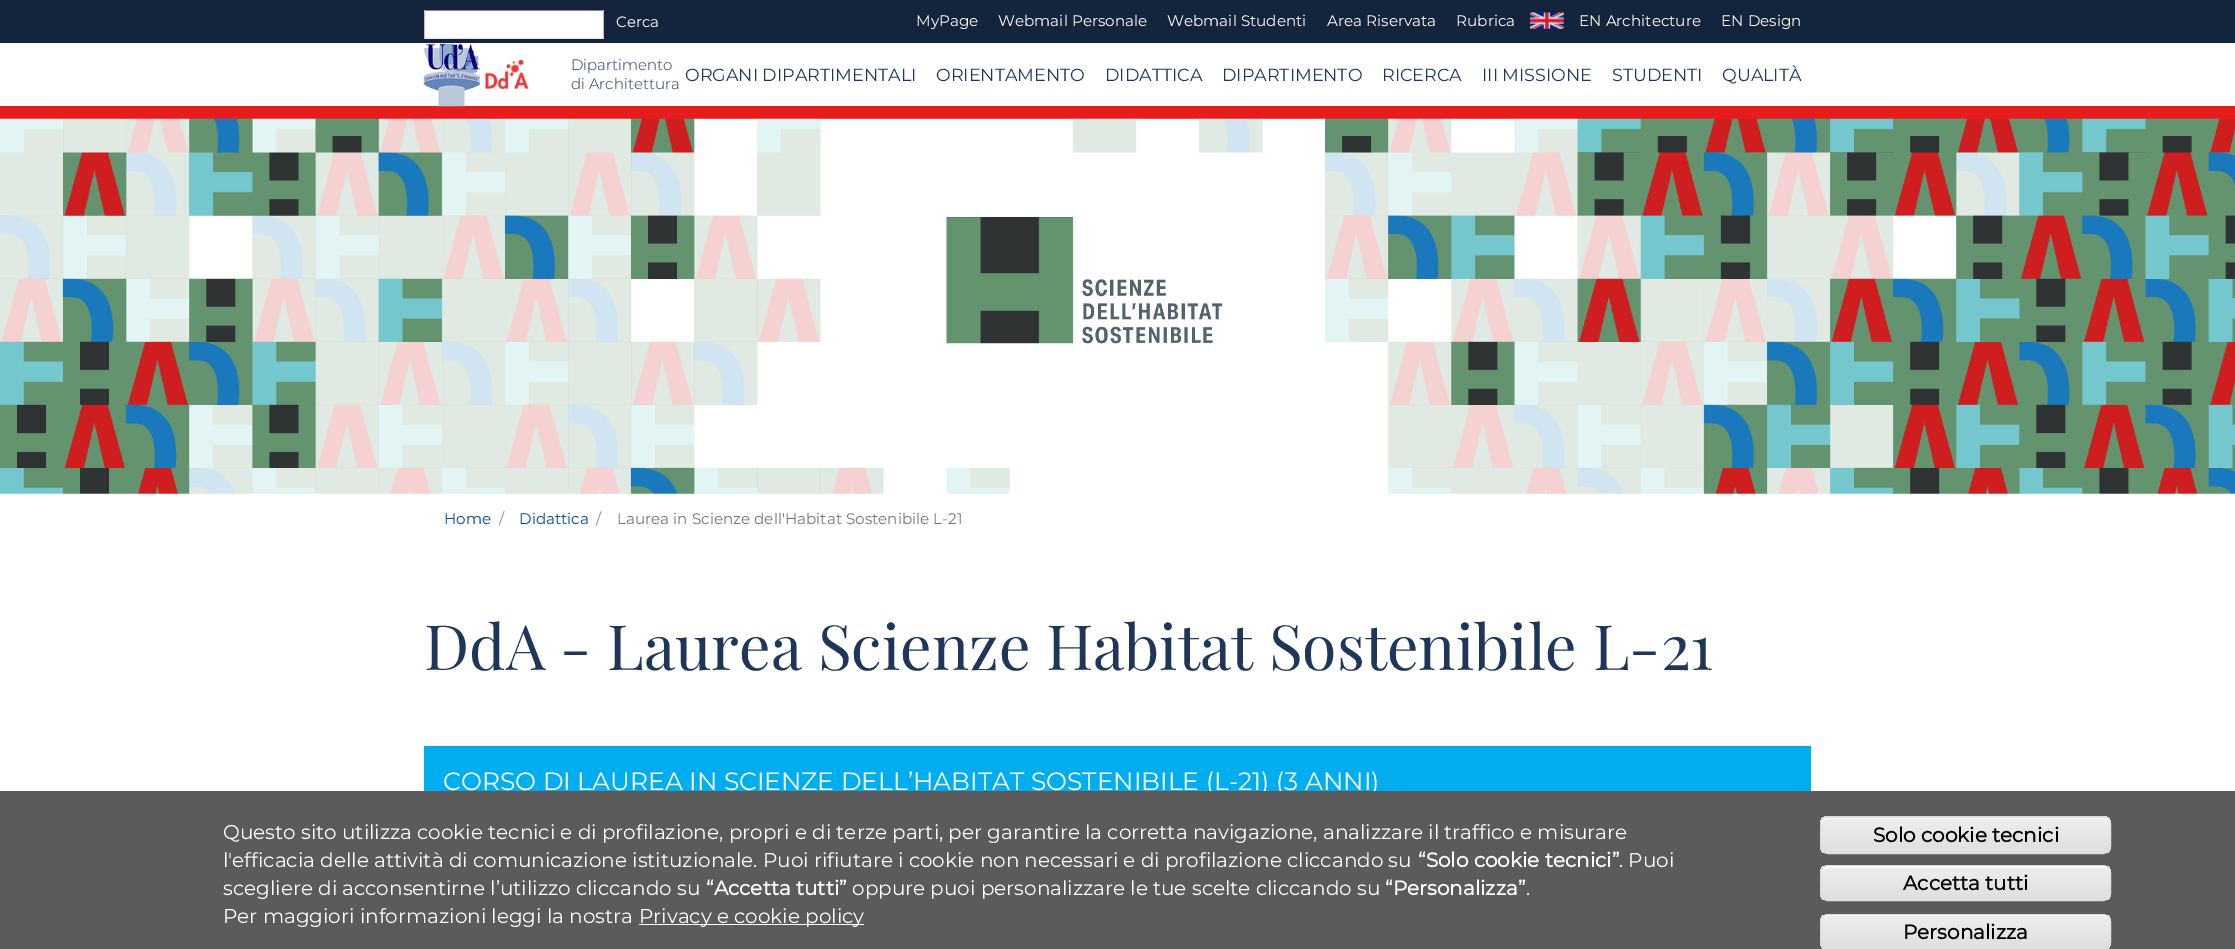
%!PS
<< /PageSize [2235 949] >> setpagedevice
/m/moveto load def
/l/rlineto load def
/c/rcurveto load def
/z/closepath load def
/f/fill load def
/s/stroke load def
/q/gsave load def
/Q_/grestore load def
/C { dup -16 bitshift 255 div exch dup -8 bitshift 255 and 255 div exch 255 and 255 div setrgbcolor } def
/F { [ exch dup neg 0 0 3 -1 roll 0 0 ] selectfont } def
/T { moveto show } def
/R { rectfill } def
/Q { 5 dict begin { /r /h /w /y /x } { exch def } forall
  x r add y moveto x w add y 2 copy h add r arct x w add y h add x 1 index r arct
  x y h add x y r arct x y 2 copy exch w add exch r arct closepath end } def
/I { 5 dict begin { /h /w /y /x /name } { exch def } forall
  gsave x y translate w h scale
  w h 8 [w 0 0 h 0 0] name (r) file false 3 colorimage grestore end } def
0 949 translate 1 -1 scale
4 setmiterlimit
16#FFFFFF C
0 0 2235 949 R
16#14243C C
0 0 2235 43 R
16#FFFFFF C
425 11 178 27 R
16#848484 C
424 10 180 1 R
16#C1C1C1 C
603 10 1 29 R
16#E1E1E1 C
424 38 180 1 R
16#C1C1C1 C
424 10 1 29 R
/Montserrat-Regular 15 F
16#FFFFFF C
(Cerca) 616 27 T
/Montserrat-Regular 15.2 F
(MyPage) 916 26 T
(Webmail Personale) 998 26 T
(Webmail Studenti) 1167 26 T
(Area Riservata) 1327 26 T
(Rubrica) 1456 26 T
(1.rgb) 1530 12 34 17 I
(EN Architecture) 1579 26 T
(EN Design) 1721 26 T
16#E71D1D C
0 106 2235 13 R
(2.rgb) 423 43 57 64 I
(3.rgb) 485 59 44 30 I
/Montserrat-Light 15 F
16#1E365A C
(Dipartimento) 571 70 T
(di Architettura) 571 89 T
/Montserrat-Regular 17.5 F
(ORGANI DIPARTIMENTALI) 685 81 T
(ORIENTAMENTO) 936 81 T
(DIDATTICA) 1105 81 T
(DIPARTIMENTO) 1222 81 T
(RICERCA) 1382 81 T
(III MISSIONE) 1482 81 T
(STUDENTI) 1612 81 T
(QUALITÀ) 1722 81 T
(4.rgb) 0 118 2235 376 I
/Montserrat-Regular 15.2 F
16#0048A0 C
(Home) 444 524 T
16#868E96 C
(/) 499 524 T
16#0048A0 C
(Didattica) 519 524 T
16#868E96 C
(/) 596 524 T
16#767676 C
(Laurea in Scienze dell'Habitat Sostenibile L-21) 617 524 T
/PlayfairDisplay-Regular 62.5 F
16#1E365A C
(DdA - Laurea Scienze Habitat Sostenibile L-21) 424 670 T
16#00ADEE C
424 746 1387 45 R
/Montserrat-Regular 25 F
16#FFFFFF C
(CORSO DI LAUREA IN SCIENZE DELL’HABITAT SOSTENIBILE \(L-21\) \(3 ANNI\)) 443 790 T
16#5B5B5B C
0 791 2235 158 R
/Montserrat-Regular 20 F
16#FFFFFF C
(Questo sito utilizza cookie tecnici e di profilazione, propri e di terze parti, per garantire la corretta navigazione, analizzare il traffico e misurare) 223 839 T
(l'efficacia delle attività di comunicazione istituzionale. Puoi rifiutare i cookie non necessari e di profilazione cliccando su) 223 867 T
/Montserrat-Bold 20 F
(“Solo cookie tecnici”) 1418 867 T
/Montserrat-Regular 20 F
(. Puoi) 1619 867 T
(scegliere di acconsentirne l’utilizzo cliccando su) 223 895 T
/Montserrat-Bold 20 F
(“Accetta tutti”) 706 895 T
/Montserrat-Regular 20 F
(oppure puoi personalizzare le tue scelte cliccando su) 852 895 T
/Montserrat-Bold 20 F
(“Personalizza”) 1385 895 T
/Montserrat-Regular 20 F
(.) 1526 895 T
(Per maggiori informazioni leggi la nostra) 223 923 T
639 924 225 1 R
(Privacy e cookie policy) 639 923 T
q
1820 816 291 38 8 Q clip newpath
q 1820 816 m 291 0 l 0 2 l -291 0 l z clip newpath
<< /ShadingType 2 /ColorSpace /DeviceRGB /Coords [1966 783 1966 818] /Extend [true true] /Function << /FunctionType 3 /Domain [0 1] /Functions [<< /FunctionType 2 /Domain [0 1] /C0 [.929 .929 .929] /C1 [.929 .929 .929] /N 1 >> << /FunctionType 2 /Domain [0 1] /C0 [.929 .929 .929] /C1 [.875 .875 .875] /N 1 >>] /Bounds [.05] /Encode [0 1 0 1] >> >> shfill Q_
q 1820 818 m 291 0 l 0 35 l -291 0 l z clip newpath
<< /ShadingType 2 /ColorSpace /DeviceRGB /Coords [1966 818 1966 853] /Extend [true true] /Function << /FunctionType 3 /Domain [0 1] /Functions [<< /FunctionType 2 /Domain [0 1] /C0 [.929 .929 .929] /C1 [.929 .929 .929] /N 1 >> << /FunctionType 2 /Domain [0 1] /C0 [.929 .929 .929] /C1 [.875 .875 .875] /N 1 >>] /Bounds [.05] /Encode [0 1 0 1] >> >> shfill Q_
Q_
1828 819 m 276 0 l 3 0 6 3 6 6 c 0 -1 l 0 -3 -3 -6 -6 -6 c -277 0 l -3 0 -6 3 -6 6 c 0 1 l 0 -3 3 -6 7 -6 c z f
16#DCDCDC C
1820.5 816.5 290 37 7.5 Q s
/Montserrat-Bold 20 F
16#000000 C
(Solo cookie tecnici) 1873 842 T
q
1820 865 291 36 8 Q clip newpath
q 1820 866 m 291 0 l 0 34 l -291 0 l z clip newpath
<< /ShadingType 2 /ColorSpace /DeviceRGB /Coords [1966 866 1966 900] /Extend [true true] /Function << /FunctionType 3 /Domain [0 1] /Functions [<< /FunctionType 2 /Domain [0 1] /C0 [.929 .929 .929] /C1 [.929 .929 .929] /N 1 >> << /FunctionType 2 /Domain [0 1] /C0 [.929 .929 .929] /C1 [.875 .875 .875] /N 1 >>] /Bounds [.05] /Encode [0 1 0 1] >> >> shfill Q_
Q_
16#FFFFFF C
1828 868 m 276 0 l 3 0 6 2 6 6 c 0 -2 l 0 -3 -3 -6 -6 -6 c -277 0 l -3 0 -6 3 -6 6 c 0 2 l 0 -4 3 -6 7 -6 c z f
16#DCDCDC C
1820.5 865.5 290 35 7.5 Q s
16#000000 C
(Accetta tutti) 1903 890 T
q
1820 914 291 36 8 Q clip newpath
q 1820 915 m 291 0 l 0 34 l -291 0 l z clip newpath
<< /ShadingType 2 /ColorSpace /DeviceRGB /Coords [1966 915 1966 949] /Extend [true true] /Function << /FunctionType 3 /Domain [0 1] /Functions [<< /FunctionType 2 /Domain [0 1] /C0 [.929 .929 .929] /C1 [.929 .929 .929] /N 1 >> << /FunctionType 2 /Domain [0 1] /C0 [.929 .929 .929] /C1 [.875 .875 .875] /N 1 >>] /Bounds [.05] /Encode [0 1 0 1] >> >> shfill Q_
Q_
16#FFFFFF C
1828 916 m 276 0 l 3 0 6 3 6 6 c 0 -1 l 0 -3 -3 -6 -6 -6 c -277 0 l -3 0 -6 3 -6 6 c 0 1 l 0 -3 3 -6 7 -6 c z f
16#DCDCDC C
1820.5 914.5 290 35 7.5 Q s
16#000000 C
(Personalizza) 1903 939 T
showpage
